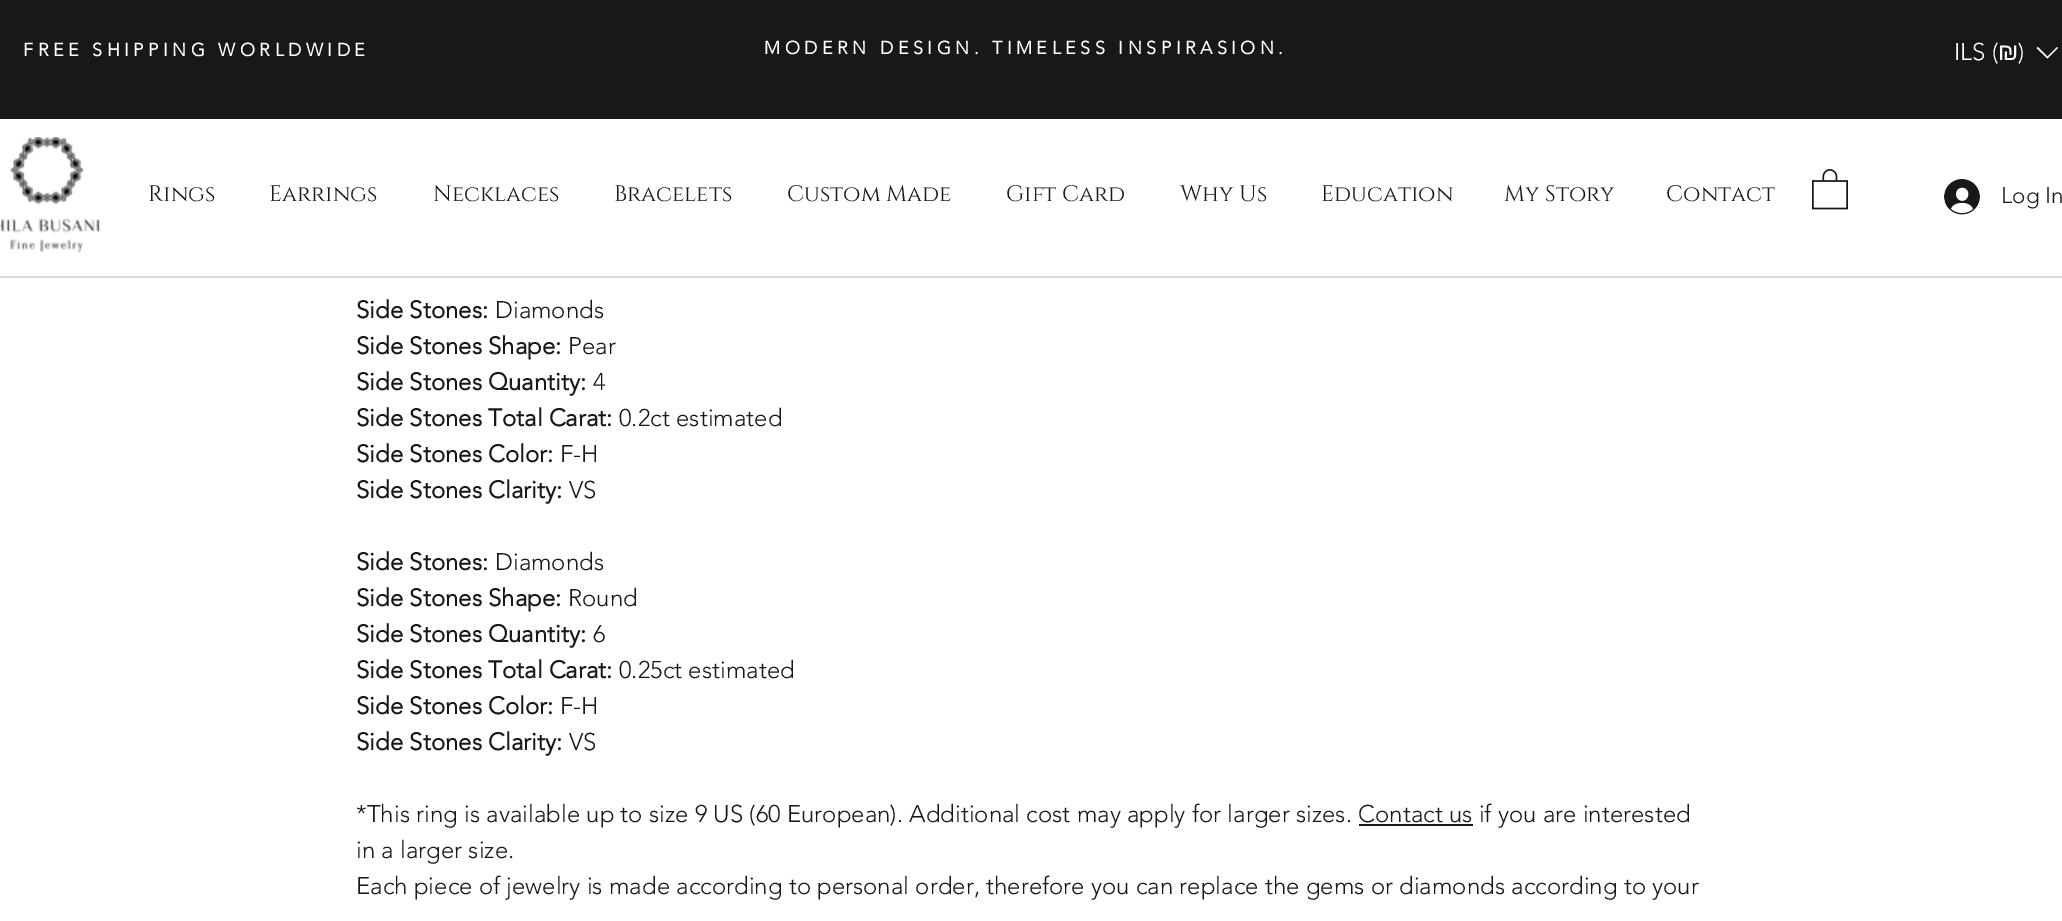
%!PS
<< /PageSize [2062 921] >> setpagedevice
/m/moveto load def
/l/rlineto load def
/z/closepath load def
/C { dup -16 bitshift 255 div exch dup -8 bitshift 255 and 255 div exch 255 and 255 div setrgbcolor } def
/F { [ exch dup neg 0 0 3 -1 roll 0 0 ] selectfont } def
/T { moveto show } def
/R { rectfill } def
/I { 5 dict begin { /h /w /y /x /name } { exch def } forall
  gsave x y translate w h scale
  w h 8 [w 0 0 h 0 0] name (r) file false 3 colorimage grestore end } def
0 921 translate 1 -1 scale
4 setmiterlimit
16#FFFFFF C
0 0 2062 921 R
16#181818 C
0 0 2062 119 R
/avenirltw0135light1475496-Bold 18 F
16#FFFFFF C
23 56 m 4.5 0 (FREE SHIPPING WORLDWIDE) ashow
764 54 m 4.5 0 (MODERN DESIGN. TIMELESS INSPIRASION.) ashow
/avenirltw0135light1475496-Light 24 F
(ILS \() 1954 60 T
/LiberationSans-Regular 24 F
(₪) 1998 60 T
/avenirltw0135light1475496-Light 24 F
(\)) 2018 60 T
2057 47 m 1 1 l -10.5 10.5 l -11 -10.5 l 1.5 -1 l 9.5 9.5 l z eofill
(1.rgb) 0 137 101 116 I
/Cinzel-Regular 22.5 F
16#181818 C
(Rings) 148 201 T
(Earrings) 269 201 T
(Necklaces) 433 201 T
(Bracelets) 614 201 T
(Custom Made) 787 201 T
(Gift Card) 1006 201 T
(Why Us) 1180 201 T
(Education) 1321 201 T
(My Story) 1504 201 T
(Contact) 1666 201 T
(2.rgb) 1812 169 36 41 I
(3.rgb) 1944 179 36 36 I
/avenirltw0135light1475496-Light 22.5 F
(Log In) 2001 203 T
16#DBDBDB C
0 276 2062 2 R
/avenirltw0135light1475496-Bold 24 F
16#181818 C
(Side Stones:) 356 318 T
/avenirltw0135light1475496-Light 24 F
(Diamonds) 495 318 T
/avenirltw0135light1475496-Bold 24 F
(Side Stones Shape:) 356 354 T
/avenirltw0135light1475496-Light 24 F
(Pear) 568 354 T
/avenirltw0135light1475496-Bold 24 F
(Side Stones Quantity:) 356 390 T
/avenirltw0135light1475496-Light 24 F
(4) 593 390 T
/avenirltw0135light1475496-Bold 24 F
(Side Stones Total Carat:) 356 426 T
/avenirltw0135light1475496-Light 24 F
(0.2ct estimated) 619 426 T
/avenirltw0135light1475496-Bold 24 F
(Side Stones Color:) 356 462 T
/avenirltw0135light1475496-Light 24 F
(F-H) 560 462 T
/avenirltw0135light1475496-Bold 24 F
(Side Stones Clarity:) 356 498 T
/avenirltw0135light1475496-Light 24 F
(VS) 569 498 T
/avenirltw0135light1475496-Bold 24 F
(Side Stones:) 356 570 T
/avenirltw0135light1475496-Light 24 F
(Diamonds) 495 570 T
/avenirltw0135light1475496-Bold 24 F
(Side Stones Shape:) 356 606 T
/avenirltw0135light1475496-Light 24 F
(Round) 568 606 T
/avenirltw0135light1475496-Bold 24 F
(Side Stones Quantity:) 356 642 T
/avenirltw0135light1475496-Light 24 F
(6) 593 642 T
/avenirltw0135light1475496-Bold 24 F
(Side Stones Total Carat:) 356 678 T
/avenirltw0135light1475496-Light 24 F
(0.25ct estimated) 619 678 T
/avenirltw0135light1475496-Bold 24 F
(Side Stones Color:) 356 714 T
/avenirltw0135light1475496-Light 24 F
(F-H) 560 714 T
/avenirltw0135light1475496-Bold 24 F
(Side Stones Clarity:) 356 750 T
/avenirltw0135light1475496-Light 24 F
(VS) 569 750 T
(*This ring is available up to size 9 US \(60 European\). Additional cost may apply for larger sizes. Contact us if you are interested) 356 822 T
1359 824 114 2 R
(in a larger size.) 356 858 T
(Each piece of jewelry is made according to personal order, therefore you can replace the gems or diamonds according to your) 356 894 T
showpage
